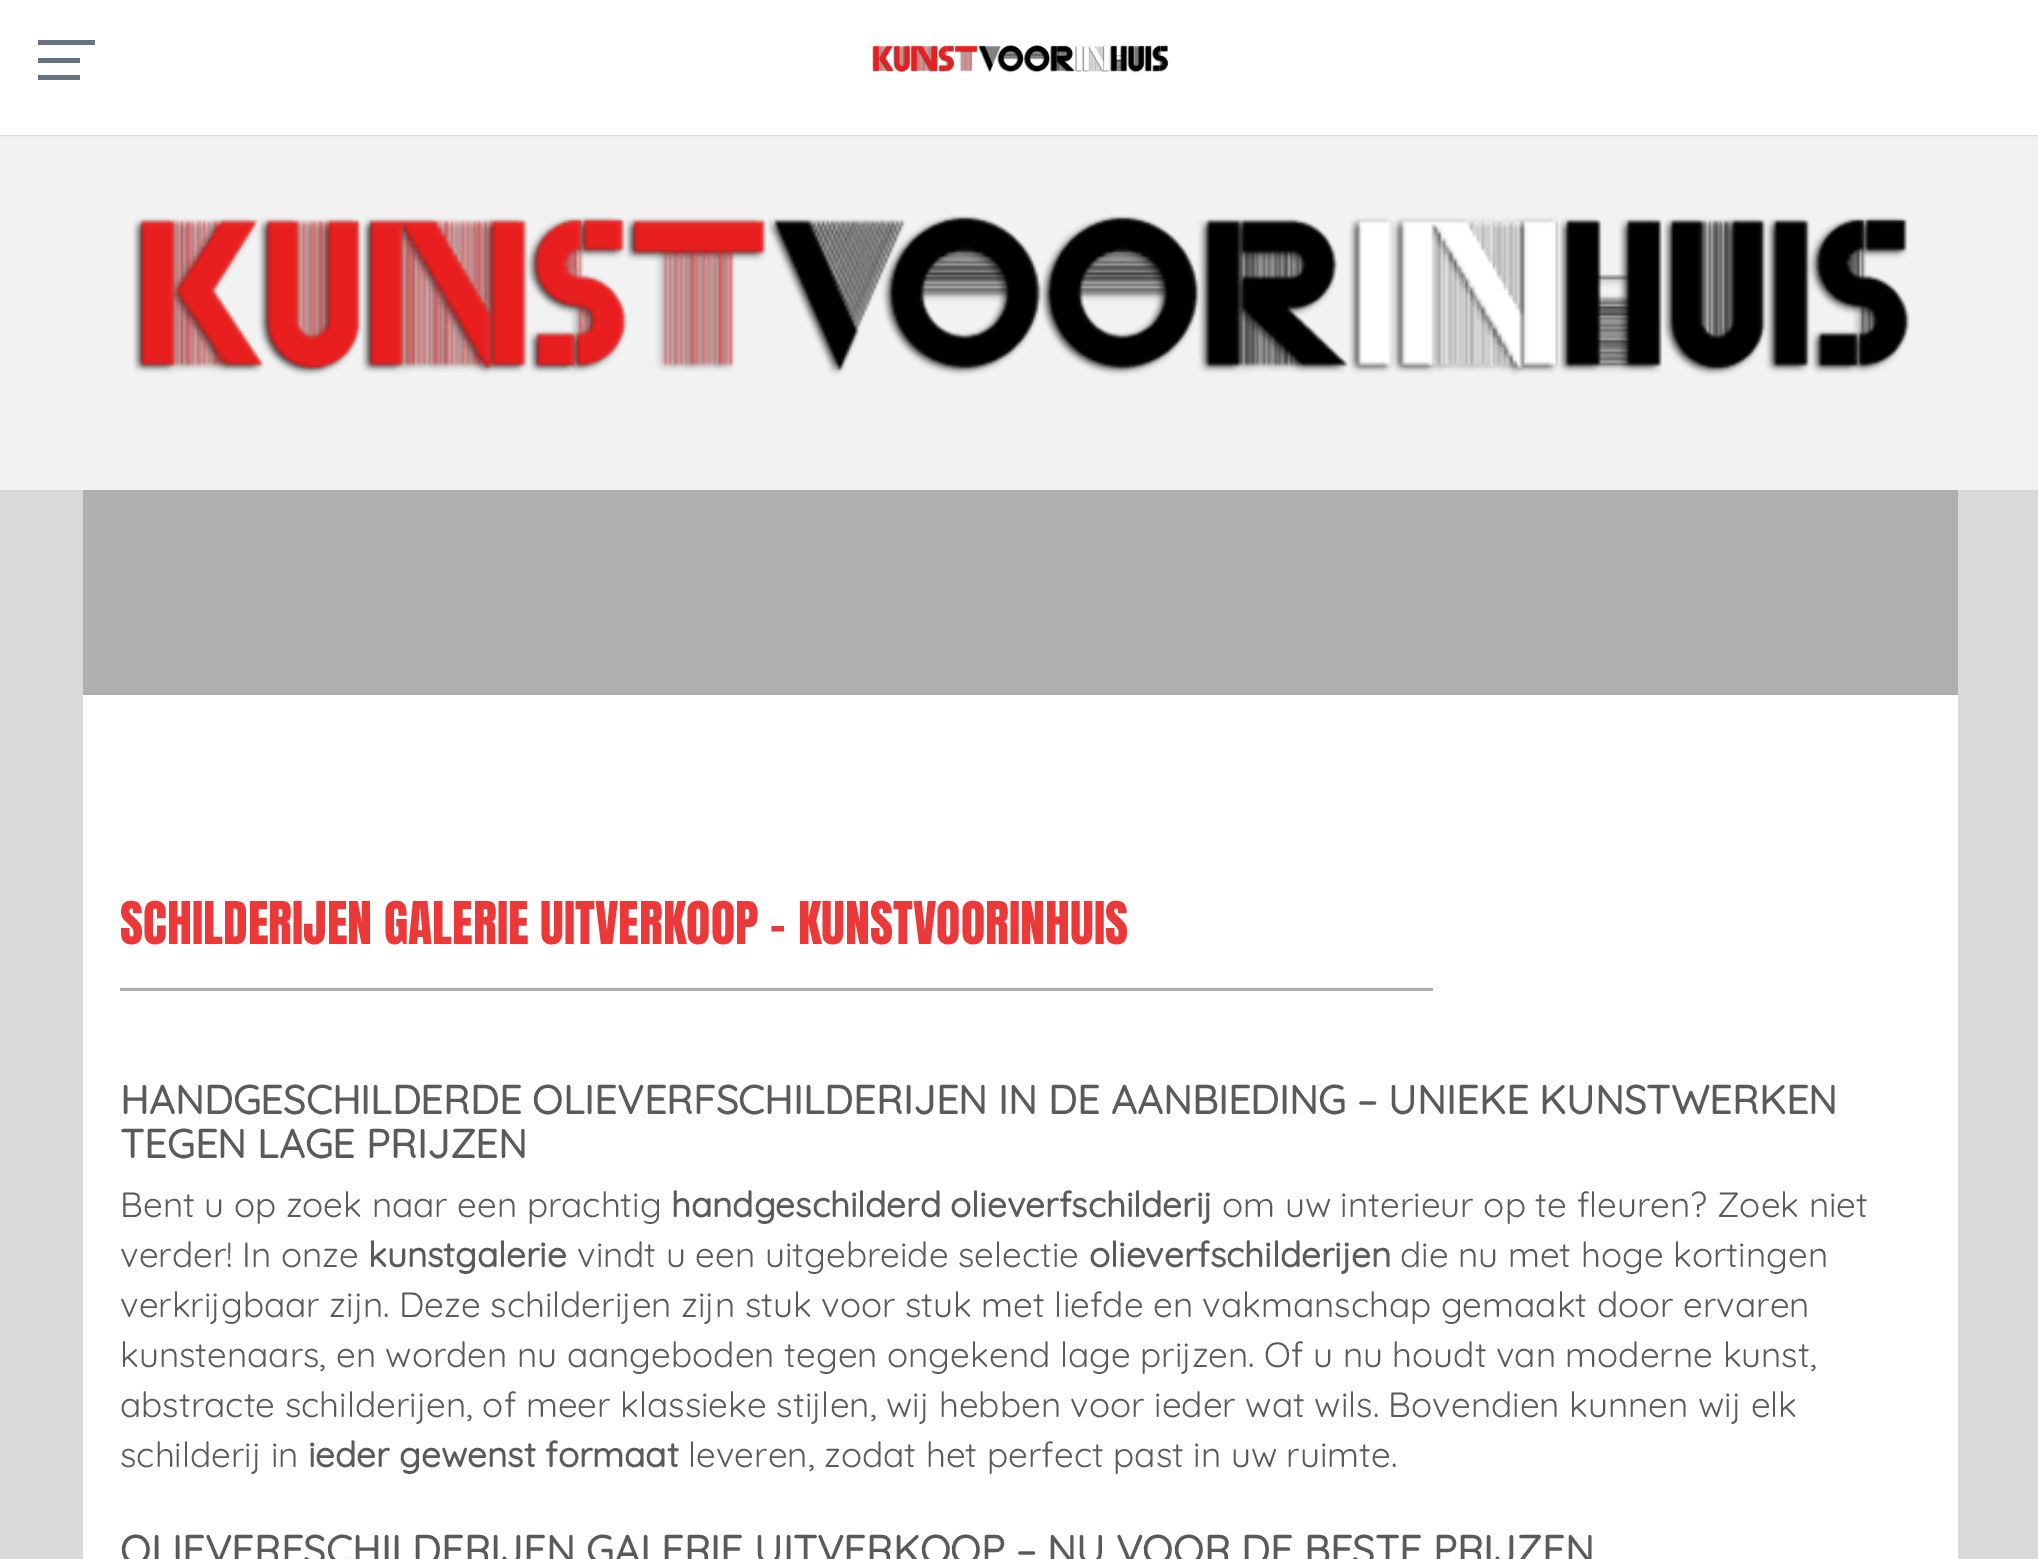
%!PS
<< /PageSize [2038 1559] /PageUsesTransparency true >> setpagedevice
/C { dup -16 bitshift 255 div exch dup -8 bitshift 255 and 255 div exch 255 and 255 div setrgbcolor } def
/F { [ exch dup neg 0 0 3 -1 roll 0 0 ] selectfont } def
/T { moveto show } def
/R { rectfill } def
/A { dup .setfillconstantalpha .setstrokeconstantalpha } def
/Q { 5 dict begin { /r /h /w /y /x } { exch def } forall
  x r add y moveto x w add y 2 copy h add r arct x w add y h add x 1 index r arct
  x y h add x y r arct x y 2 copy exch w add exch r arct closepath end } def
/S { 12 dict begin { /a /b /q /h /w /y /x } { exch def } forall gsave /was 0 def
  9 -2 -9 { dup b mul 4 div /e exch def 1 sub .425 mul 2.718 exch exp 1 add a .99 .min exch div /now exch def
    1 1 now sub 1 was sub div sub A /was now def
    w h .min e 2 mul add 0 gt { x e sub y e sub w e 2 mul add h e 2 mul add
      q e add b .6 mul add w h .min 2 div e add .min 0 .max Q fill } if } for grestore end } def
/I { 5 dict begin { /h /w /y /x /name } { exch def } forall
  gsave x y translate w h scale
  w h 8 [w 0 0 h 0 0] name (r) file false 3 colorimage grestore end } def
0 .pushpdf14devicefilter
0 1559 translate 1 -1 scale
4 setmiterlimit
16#F2F2F2 C
0 0 2038 1559 R
16#000000 C
0 0 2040 135 0 1 .3 S
16#FFFFFF C
0 0 2038 135 R
16#6A717F C
38 58 42 5 R
38 40 57 5 R
38 75 42 5 R
(1.rgb) 872 45 297 28 I
(2.rgb) 132 215 1778 161 I
16#D9D9D9 C
0 490 2038 1069 R
16#B0AFAF C
83 490 1875 205 R
16#FFFFFF C
83 695 1875 864 R
16#B0AFAF C
120 988 1313 3 R
/Anton-Regular 50 F
16#EB3838 C
(SCHILDERIJEN GALERIE UITVERKOOP - KUNSTVOORINHUIS) 120 944 T
/Quicksand-Bold 40 F
16#5A5A5A C
(HANDGESCHILDERDE OLIEVERFSCHILDERIJEN IN DE AANBIEDING – UNIEKE KUNSTWERKEN) 120 1114 T
(TEGEN LAGE PRIJZEN) 120 1158 T
/Quicksand-Light 35 F
(Bent u op zoek naar een prachtig) 120 1217 T
/Quicksand-Bold 35 F
(handgeschilderd olieverfschilderij) 671 1217 T
/Quicksand-Light 35 F
(om uw interieur op te fleuren? Zoek niet) 1222 1217 T
(verder! In onze) 120 1267 T
/Quicksand-Bold 35 F
(kunstgalerie) 368 1267 T
/Quicksand-Light 35 F
(vindt u een uitgebreide selectie) 577 1267 T
/Quicksand-Bold 35 F
(olieverfschilderijen) 1089 1267 T
/Quicksand-Light 35 F
(die nu met hoge kortingen) 1400 1267 T
(verkrijgbaar zijn. Deze schilderijen zijn stuk voor stuk met liefde en vakmanschap gemaakt door ervaren) 120 1317 T
(kunstenaars, en worden nu aangeboden tegen ongekend lage prijzen. Of u nu houdt van moderne kunst,) 120 1367 T
(abstracte schilderijen, of meer klassieke stijlen, wij hebben voor ieder wat wils. Bovendien kunnen wij elk) 120 1417 T
(schilderij in) 120 1467 T
/Quicksand-Bold 35 F
(ieder gewenst formaat) 308 1467 T
/Quicksand-Light 35 F
(leveren, zodat het perfect past in uw ruimte.) 688 1467 T
/Quicksand-Bold 40 F
(OLIEVERFSCHILDERIJEN GALERIE UITVERKOOP – NU VOOR DE BESTE PRIJZEN) 120 1564 T
.poppdf14devicefilter showpage
